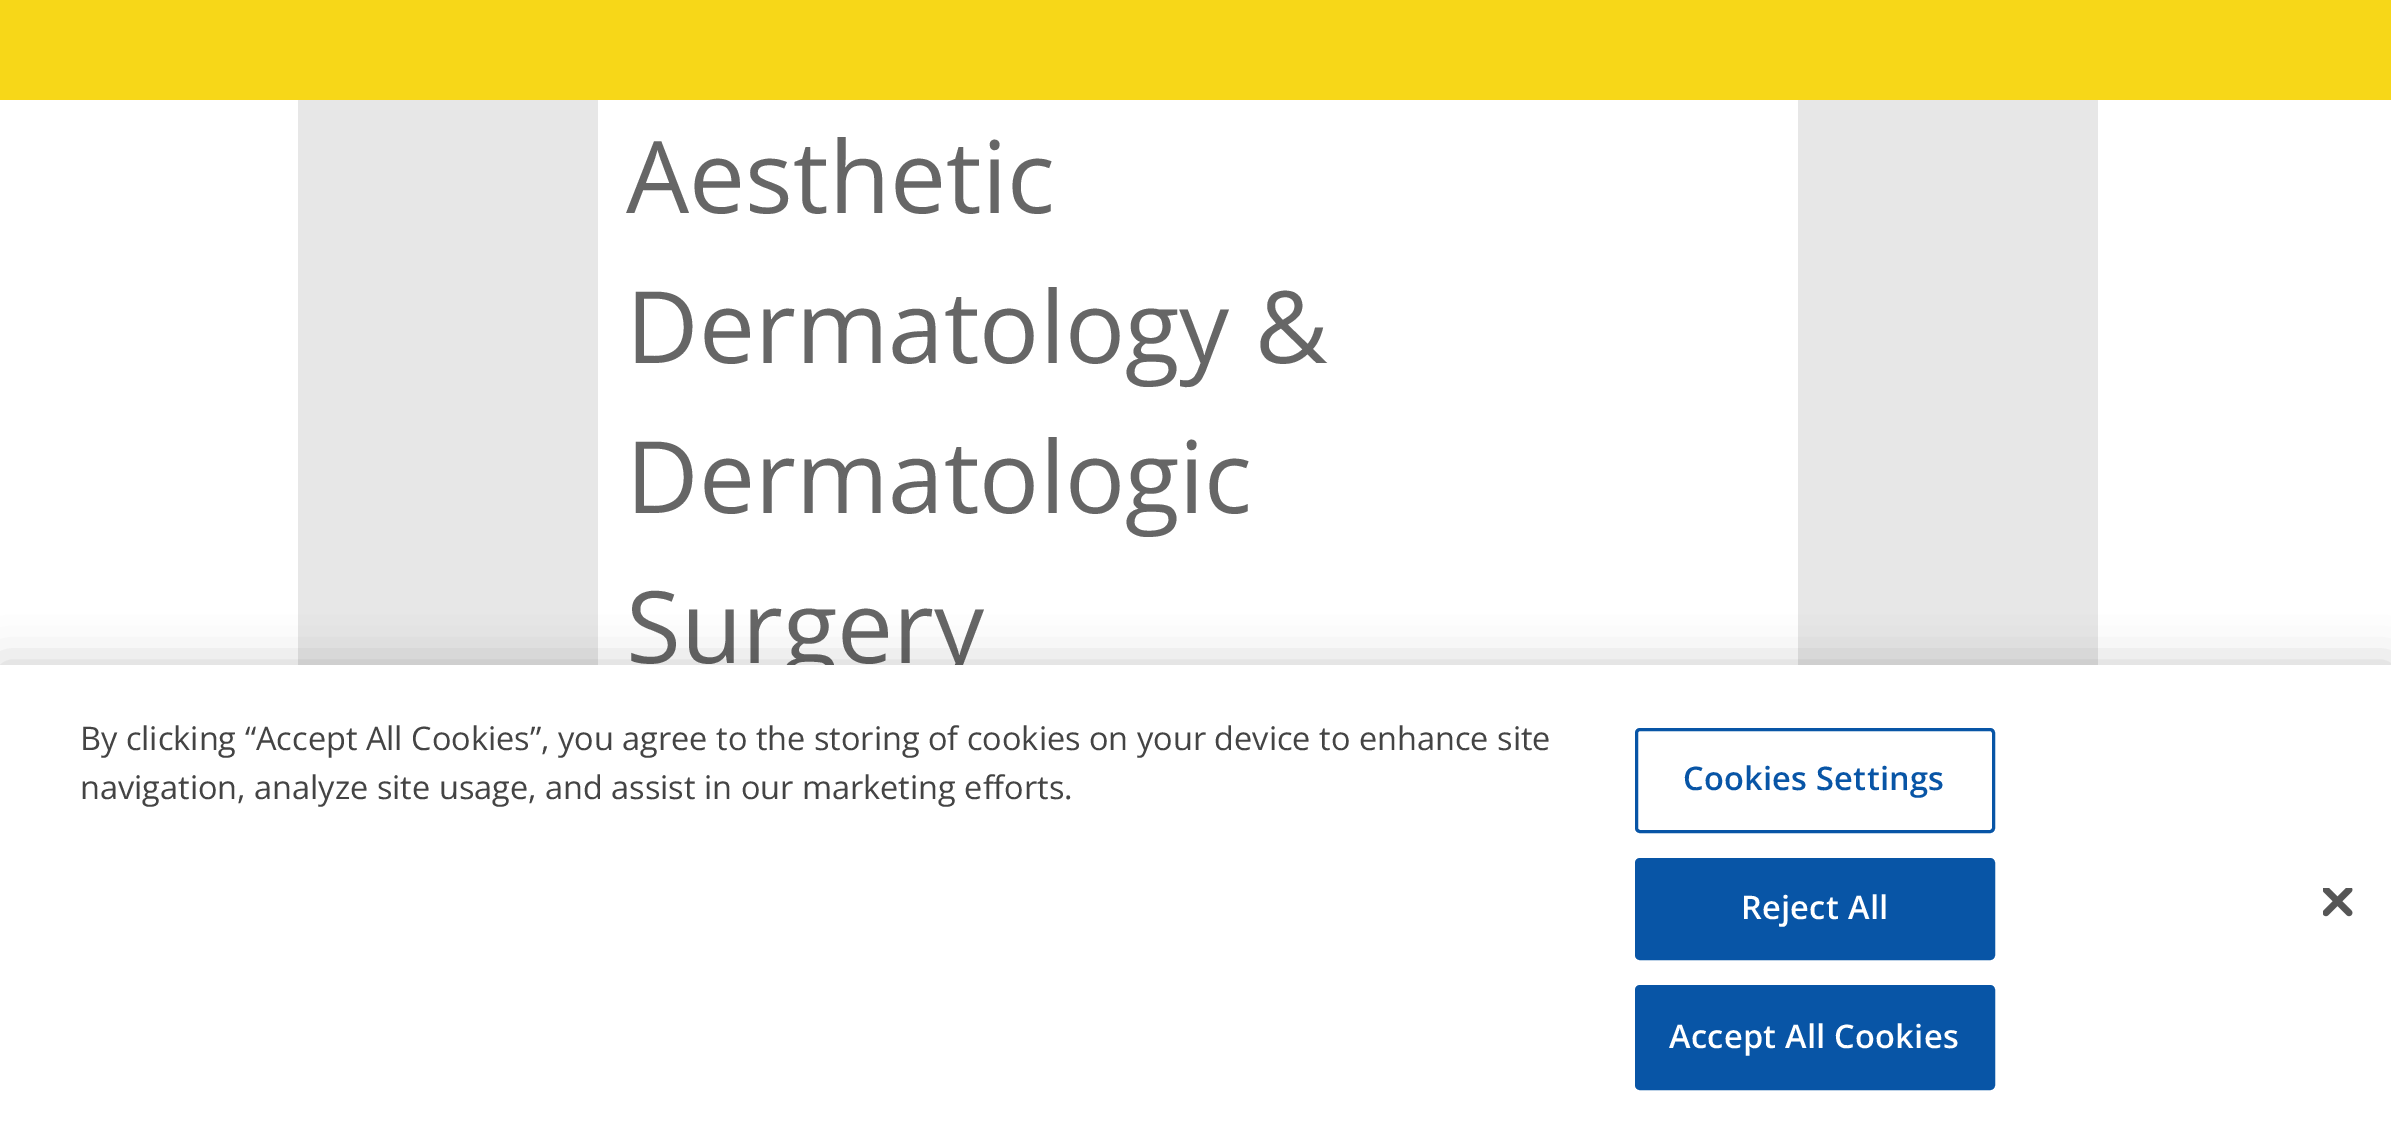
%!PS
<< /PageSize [2391 1138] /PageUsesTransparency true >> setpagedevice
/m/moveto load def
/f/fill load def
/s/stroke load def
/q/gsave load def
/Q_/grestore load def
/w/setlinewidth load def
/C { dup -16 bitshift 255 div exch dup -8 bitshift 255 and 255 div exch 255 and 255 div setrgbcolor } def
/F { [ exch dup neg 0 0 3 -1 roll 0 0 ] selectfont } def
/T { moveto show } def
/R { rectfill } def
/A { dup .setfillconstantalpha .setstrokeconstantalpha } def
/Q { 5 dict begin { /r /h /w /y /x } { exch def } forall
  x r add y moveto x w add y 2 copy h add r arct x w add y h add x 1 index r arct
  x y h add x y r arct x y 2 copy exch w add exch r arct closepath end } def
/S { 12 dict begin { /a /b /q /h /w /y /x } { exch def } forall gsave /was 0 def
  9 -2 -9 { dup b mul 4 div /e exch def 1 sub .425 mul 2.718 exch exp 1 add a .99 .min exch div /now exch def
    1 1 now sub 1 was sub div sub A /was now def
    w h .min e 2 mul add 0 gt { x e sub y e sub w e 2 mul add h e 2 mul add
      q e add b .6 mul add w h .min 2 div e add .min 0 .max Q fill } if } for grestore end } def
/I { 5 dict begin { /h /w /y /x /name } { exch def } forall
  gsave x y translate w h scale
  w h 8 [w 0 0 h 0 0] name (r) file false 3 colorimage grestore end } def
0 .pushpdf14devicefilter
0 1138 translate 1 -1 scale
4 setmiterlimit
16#FFFFFF C
0 0 2391 1138 R
16#F7D718 C
0 0 2391 100 R
16#E7E7E7 C
298 100 300 565 R
/OpenSans-Regular 100 F
16#666666 C
(Aesthetic) 626 213 T
(Dermatology &) 626 363 T
(Dermatologic) 626 513 T
(Surgery) 626 663 T
16#E7E7E7 C
1798 100 300 565 R
16#000000 C
0 665 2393 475 0 22.5 .2 S
16#FFFFFF C
0 665 2391 473 R
/OpenSans-Regular 32.5 F
16#444444 C
(By clicking “Accept All Cookies”, you agree to the storing of cookies on your device to enhance site) 80 750 T
(navigation, analyze site usage, and assist in our marketing efforts.) 80 799 T
16#0855A6 C
3 w
1636.5 729.5 357 102 3.5 Q s
/OpenSans-SemiBold 32.5 F
1683 790 m .3 0 (Cookies Settings) ashow
1636.5 859.5 357 99 3.5 Q q f Q_
s
16#FFFFFF C
1741 919 m .3 0 (Reject All) ashow
16#0855A6 C
1636.5 986.5 357 102 3.5 Q q f Q_
s
16#FFFFFF C
1669 1048 m .3 0 (Accept All Cookies) ashow
(1.rgb) 2323 888 30 29 I
.poppdf14devicefilter showpage
